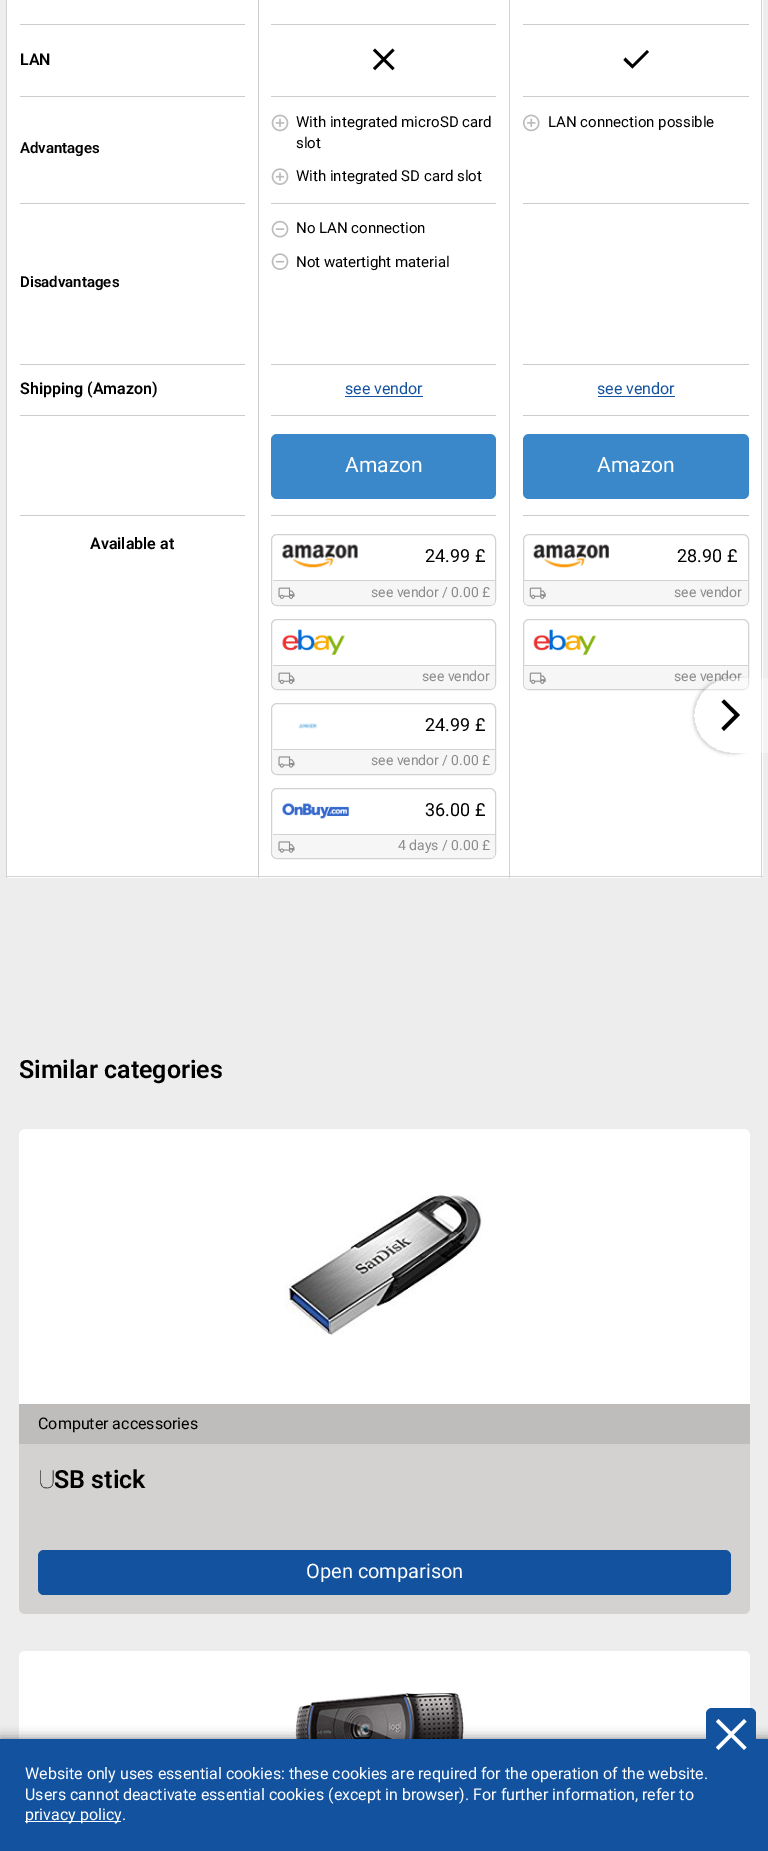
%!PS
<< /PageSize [768 1851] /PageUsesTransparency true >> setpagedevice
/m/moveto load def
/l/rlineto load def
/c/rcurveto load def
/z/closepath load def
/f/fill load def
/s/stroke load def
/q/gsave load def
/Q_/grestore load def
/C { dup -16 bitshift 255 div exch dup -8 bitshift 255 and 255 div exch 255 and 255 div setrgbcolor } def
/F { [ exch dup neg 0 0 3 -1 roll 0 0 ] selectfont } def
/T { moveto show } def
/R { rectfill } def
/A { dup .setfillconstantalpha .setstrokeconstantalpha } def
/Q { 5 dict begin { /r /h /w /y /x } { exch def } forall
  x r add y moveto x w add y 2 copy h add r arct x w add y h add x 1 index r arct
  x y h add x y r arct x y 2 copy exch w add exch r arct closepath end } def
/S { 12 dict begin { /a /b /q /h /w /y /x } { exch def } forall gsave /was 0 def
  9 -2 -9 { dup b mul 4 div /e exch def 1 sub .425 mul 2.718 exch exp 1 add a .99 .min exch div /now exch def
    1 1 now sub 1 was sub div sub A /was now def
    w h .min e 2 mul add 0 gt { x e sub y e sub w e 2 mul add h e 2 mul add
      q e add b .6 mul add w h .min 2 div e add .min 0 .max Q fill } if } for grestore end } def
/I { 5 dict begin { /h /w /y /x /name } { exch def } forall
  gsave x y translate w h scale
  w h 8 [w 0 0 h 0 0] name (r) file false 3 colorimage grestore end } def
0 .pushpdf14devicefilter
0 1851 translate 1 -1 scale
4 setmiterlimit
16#EDEDED C
0 0 768 1851 R
16#FFFFFF C
7 0 251 878 R
16#CCCCCC C
258 0 1 878 R
16#D4D2D1 C
6 876 253 1 R
6 0 1 878 R
16#CCCCCC C
20 24 225 1 R
/Roboto-SemiBold 16 F
16#000000 C
(LAN) 20 65 T
16#CCCCCC C
20 96 225 1 R
/Roboto-SemiBold 15 F
16#000000 C
(Advantages) 20 153 T
16#CCCCCC C
20 203 225 1 R
16#000000 C
(Disadvantages) 20 287 T
16#CCCCCC C
20 364 225 1 R
/Roboto-SemiBold 16 F
16#000000 C
(Shipping \(Amazon\)) 20 394 T
16#CCCCCC C
20 415 225 1 R
20 515 225 1 R
16#000000 C
(Available at) 90 549 T
16#FFFFFF C
259 0 504 878 R
16#D4D2D1 C
509 0 1 878 R
259 876 251 1 R
16#CCCCCC C
271 24 225 1 R
(1.rgb) 372 48 23 23 I
271 96 225 1 R
(2.rgb) 271 114 18 18 I
/Roboto-Regular 15 F
16#000000 C
(With integrated microSD card) 296 127 T
(slot) 296 148 T
(3.rgb) 271 168 18 17 I
(With integrated SD card slot) 296 181 T
16#CCCCCC C
271 203 225 1 R
(4.rgb) 271 220 18 18 I
16#000000 C
(No LAN connection) 296 233 T
(5.rgb) 271 253 18 17 I
(Not watertight material) 296 267 T
16#CCCCCC C
271 364 225 1 R
/Roboto-Regular 16 F
16#12529F C
(see vendor) 345 394 T
345 396 78 1 R
16#CCCCCC C
271 415 225 1 R
16#3A87C9 C
271 434 225 65 6 Q f
/Roboto-Regular 21 F
16#FFFFFF C
(Amazon) 345 472 T
16#CCCCCC C
271 515 225 1 R
16#D4D2D1 C
271.5 534.5 224 71 5.5 Q s
(6.rgb) 282 544 76 24 I
/Roboto-Regular 18 F
16#000000 C
(24.99 £) 425 562 T
16#F6F6F6 C
273 580 m 222 0 l 0 20 l 0 3 -2 5 -5 5 c -212 0 l -3 0 -5 -2 -5 -5 c z f
16#D4D2D1 C
273 580 222 1 R
(7.rgb) 278 587 17 12 I
/Roboto-Regular 14 F
16#8B8B8B C
(see vendor) 371 597 T
(/ 0.00 £) 442 597 T
16#D4D2D1 C
271.5 619.5 224 70 5.5 Q s
(8.rgb) 282 629 63 26 I
16#F6F6F6 C
273 665 m 222 0 l 0 19 l 0 3 -2 5 -5 5 c -212 0 l -3 0 -5 -2 -5 -5 c z f
16#D4D2D1 C
273 665 222 1 R
(7.rgb) 278 672 17 12 I
16#8B8B8B C
(see vendor) 422 681 T
16#D4D2D1 C
271.5 703.5 224 71 5.5 Q s
(9.rgb) 298 723 19 6 I
/Roboto-Regular 18 F
16#000000 C
(24.99 £) 425 731 T
16#F6F6F6 C
273 749 m 222 0 l 0 20 l 0 3 -2 5 -5 5 c -212 0 l -3 0 -5 -2 -5 -5 c z f
16#D4D2D1 C
273 749 222 1 R
(10.rgb) 278 756 17 12 I
/Roboto-Regular 14 F
16#8B8B8B C
(see vendor) 371 765 T
(/ 0.00 £) 442 765 T
16#D4D2D1 C
271.5 788.5 224 70 5.5 Q s
(11.rgb) 282 803 67 16 I
/Roboto-Regular 18 F
16#000000 C
(36.00 £) 425 816 T
16#F6F6F6 C
273 834 m 222 0 l 0 19 l 0 3 -2 5 -5 5 c -212 0 l -3 0 -5 -2 -5 -5 c z f
16#D4D2D1 C
273 834 222 1 R
(10.rgb) 278 841 17 12 I
/Roboto-Regular 14 F
16#8B8B8B C
(4 days) 398 850 T
(/ 0.00 £) 442 850 T
16#D4D2D1 C
761 0 1 878 R
510 876 253 1 R
16#CCCCCC C
523 24 226 1 R
16#000000 C
632.5 68.5 m -9 -8.5 l 2 -2.5 l 7 7 l 14.5 -14.5 l 2 2 l z f
16#CCCCCC C
523 96 226 1 R
(12.rgb) 523 114 17 18 I
/Roboto-Regular 15 F
16#000000 C
(LAN connection possible) 548 127 T
16#CCCCCC C
523 203 226 1 R
523 364 226 1 R
/Roboto-Regular 16 F
16#12529F C
(see vendor) 597 394 T
598 396 77 1 R
16#CCCCCC C
523 415 226 1 R
16#3A87C9 C
523 434 226 65 6 Q f
/Roboto-Regular 21 F
16#FFFFFF C
(Amazon) 597 472 T
16#CCCCCC C
523 515 226 1 R
16#D4D2D1 C
523.5 534.5 225 71 5.5 Q s
(13.rgb) 533 544 76 24 I
/Roboto-Regular 18 F
16#000000 C
(28.90 £) 677 562 T
16#F6F6F6 C
524 580 m 224 0 l 0 20 l 0 3 -2 5 -5 5 c -214 0 l -3 0 -5 -2 -5 -5 c z f
16#D4D2D1 C
524 580 224 1 R
(14.rgb) 529 587 17 12 I
/Roboto-Regular 14 F
16#8B8B8B C
(see vendor) 674 597 T
16#D4D2D1 C
523.5 619.5 225 70 5.5 Q s
(15.rgb) 533 629 64 26 I
16#F6F6F6 C
524 665 m 224 0 l 0 19 l 0 3 -2 5 -5 5 c -214 0 l -3 0 -5 -2 -5 -5 c z f
16#D4D2D1 C
524 665 224 1 R
(14.rgb) 529 672 17 12 I
16#8B8B8B C
(see vendor) 674 681 T
q
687 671 m 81 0 l 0 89 l -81 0 l z 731.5 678 m 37.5 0 l 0 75 l -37.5 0 l -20.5 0 -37.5 -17 -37.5 -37.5 c 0 -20.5 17 -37.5 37.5 -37.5 c z eoclip newpath
16#000000 C
694 678 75 75 37.5 2 .3 S
Q_
0.4 A
16#FFFFFF C
731.5 678 m 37.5 0 l 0 75 l -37.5 0 l -20.5 0 -37.5 -17 -37.5 -37.5 c 0 -20.5 17 -37.5 37.5 -37.5 c z f
1 A
16#000000 C
724 731 m -2.5 -3 l 13 -13 l -13 -13 l 2.5 -2.5 l 16 15.5 l z f
/Roboto-SemiBold 25 F
(Similar categories) 19 1078 T
16#D4D2D1 C
19 1129 731 485 6 Q f
16#FFFFFF C
25 1129 m 719 0 l 3.5 0 6 2.5 6 6 c 0 269 l -731 0 l 0 -269 l 0 -3.5 2.5 -6 6 -6 c z f
(16.rgb) 285 1195 198 140 I
16#BFBDBC C
19 1404 731 40 R
/Roboto-Regular 16 F
16#000000 C
(Computer accessories) 38 1429 T
/NotoSans-Thin 25 F
(U) 38 1488 T
/Roboto-SemiBold 25 F
(SB stick) 54 1488 T
16#12529F C
38 1550 693 45 6 Q f
/Roboto-Regular 20 F
16#FFFFFF C
(Open comparison) 306 1578 T
25 1651 m 719 0 l 3.5 0 6 2.5 6 6 c 0 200 l -731 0 l 0 -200 l 0 -3.5 2.5 -6 6 -6 c z f
(17.rgb) 295 1693 177 46 I
16#000000 C
0 1739 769 112 0 6 .5 S
16#12529F C
0 1739 768 112 R
706 1708 50 50 6 Q f
16#FFFFFF C
718.5 1719 m 28 28.5 l -2.5 2.5 l -28 -28.5 l z f
716 1747.5 m 28 -28.5 l 2.5 2.5 l -28 28.5 l z f
/Roboto-Regular 16 F
(Website only uses essential cookies: these cookies are required for the operation of the website.) 25 1779 T
(Users cannot deactivate essential cookies \(except in browser\). For further information, refer to) 25 1800 T
25 1821 96 1 R
(privacy policy.) 25 1820 T
.poppdf14devicefilter showpage
